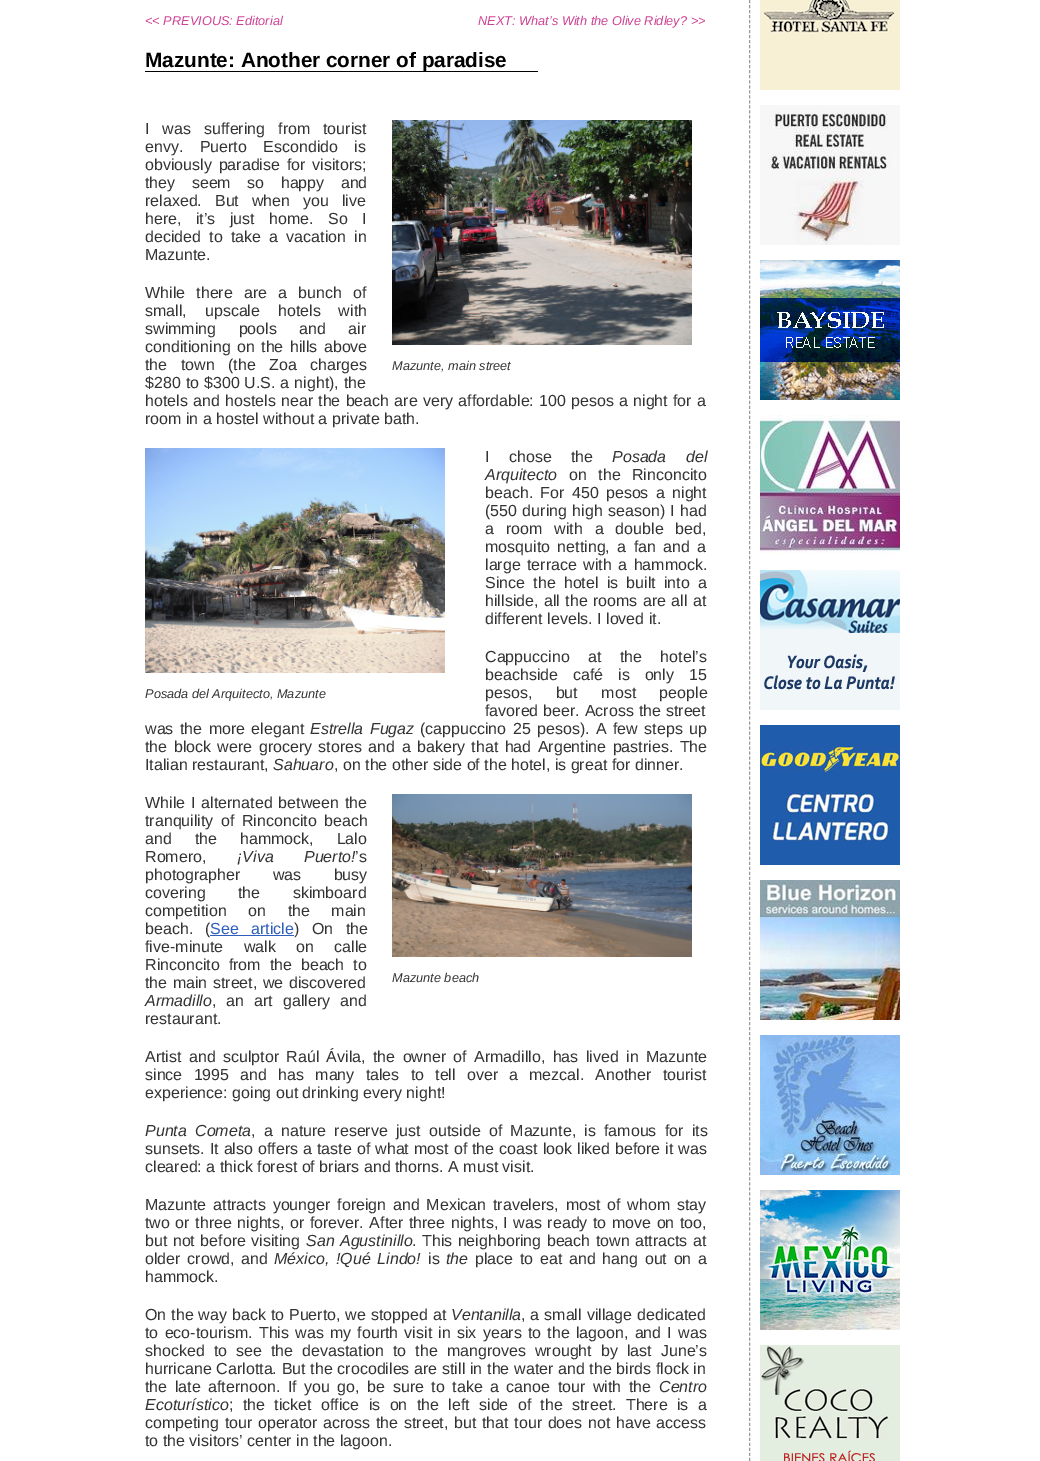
%!PS
<< /PageSize [1040 1461] >> setpagedevice
/m/moveto load def
/l/rlineto load def
/s/stroke load def
/C { dup -16 bitshift 255 div exch dup -8 bitshift 255 and 255 div exch 255 and 255 div setrgbcolor } def
/F { [ exch dup neg 0 0 3 -1 roll 0 0 ] selectfont } def
/T { moveto show } def
/R { rectfill } def
/I { 5 dict begin { /h /w /y /x /name } { exch def } forall
  gsave x y translate w h scale
  w h 8 [w 0 0 h 0 0] name (r) file false 3 colorimage grestore end } def
0 1461 translate 1 -1 scale
4 setmiterlimit
16#FFFFFF C
0 0 1040 1461 R
/LiberationSans-Italic 12.75 F
16#CE4195 C
(<< PREVIOUS: Editorial) 145 25 T
(NEXT: What’s With the Olive Ridley? >>) 478 25 T
16#000000 C
145 71 393 1 R
/LiberationSans-Bold 20.75 F
(Mazunte: Another corner of paradise) 145 67 T
/LiberationSans-Regular 16 F
16#333333 C
145 134 m 8.5 0 32 (I was suffering from tourist) widthshow
145 152 m 12 0 32 (envy. Puerto Escondido is) widthshow
145 170 m 2.4 0 32 (obviously paradise for visitors;) widthshow
145 188 m 12 0 32 (they seem so happy and) widthshow
145 206 m 8.5 0 32 (relaxed. But when you live) widthshow
145 224 m 10 0 32 (here, it’s just home. So I) widthshow
145 242 m 3.75 0 32 (decided to take a vacation in) widthshow
(Mazunte.) 145 260 T
145 298 m 6.75 0 32 (While there are a bunch of) widthshow
145 316 m 13.5 0 32 (small, upscale hotels with) widthshow
145 334 m 18 0 32 (swimming pools and air) widthshow
145 352 m 2 0 32 (conditioning on the hills above) widthshow
145 370 m 9 0 32 (the town \(the Zoa charges) widthshow
145 388 m .5 0 32 ($280 to $300 U.S. a night\), the) widthshow
145 406 m .8 0 32 (hotels and hostels near the beach are very affordable: 100 pesos a night for a) widthshow
(room in a hostel without a private bath.) 145 424 T
(1.rgb) 392 120 300 225 I
/LiberationSans-Italic 12.75 F
(Mazunte, main street) 392 370 T
/LiberationSans-Regular 16 F
485 462 m 15 0 32 (I chose the) widthshow
/LiberationSans-Italic 16 F
612 462 m 15 0 32 (Posada del) widthshow
(Arquitecto) 485 480 T
/LiberationSans-Regular 16 F
569 480 m 7 0 32 (on the Rinconcito) widthshow
485 498 m 2.9 0 32 (beach. For 450 pesos a night) widthshow
485 516 m 1 0 32 (\(550 during high season\) I had) widthshow
485 534 m 7.5 0 32 (a room with a double bed,) widthshow
485 552 m 3 0 32 (mosquito netting, a fan and a) widthshow
485 570 m 2 0 32 (large terrace with a hammock.) widthshow
485 588 m 3.75 0 32 (Since the hotel is built into a) widthshow
485 606 m 1 0 32 (hillside, all the rooms are all at) widthshow
(different levels. I loved it.) 485 624 T
485 662 m 14 0 32 (Cappuccino at the hotel’s) widthshow
485 680 m 10.5 0 32 (beachside café is only 15) widthshow
485 698 m 19 0 32 (pesos, but most people) widthshow
485 716 m .5 0 32 (favored beer. Across the street) widthshow
145 734 m 2 0 32 (was the more elegant) widthshow
/LiberationSans-Italic 16 F
310 734 m 2 0 32 (Estrella Fugaz) widthshow
/LiberationSans-Regular 16 F
420 734 m 2 0 32 (\(cappuccino 25 pesos\). A few steps up) widthshow
145 752 m 2 0 32 (the block were grocery stores and a bakery that had Argentine pastries. The) widthshow
(Italian restaurant,) 145 770 T
/LiberationSans-Italic 16 F
(Sahuaro) 273 770 T
/LiberationSans-Regular 16 F
(, on the other side of the hotel, is great for dinner.) 334 770 T
(2.rgb) 145 448 300 225 I
/LiberationSans-Italic 12.75 F
(Posada del Arquitecto, Mazunte) 145 698 T
/LiberationSans-Regular 16 F
145 808 m 1.5 0 32 (While I alternated between the) widthshow
145 826 m 3 0 32 (tranquility of Rinconcito beach) widthshow
145 844 m 18.5 0 32 (and the hammock, Lalo) widthshow
(Romero,) 145 862 T
/LiberationSans-Italic 16 F
237 862 m 26 0 32 (¡Viva Puerto!) widthshow
/LiberationSans-Regular 16 F
(’s) 355 862 T
145 880 m 28 0 32 (photographer was busy) widthshow
145 898 m 28 0 32 (covering the skimboard) widthshow
145 916 m 17 0 32 (competition on the main) widthshow
145 934 m 8 0 32 (beach. \() widthshow
16#2F5EBC C
210 934 m 8 0 32 (See article) widthshow
210 935 84 1 R
16#333333 C
294 934 m 8 0 32 (\) On the) widthshow
145 952 m 16 0 32 (five-minute walk on calle) widthshow
145 970 m 4.5 0 32 (Rinconcito from the beach to) widthshow
145 988 m 1 0 32 (the main street, we discovered) widthshow
/LiberationSans-Italic 16 F
(Armadillo) 145 1006 T
/LiberationSans-Regular 16 F
212 1006 m 5.5 0 32 (, an art gallery and) widthshow
(restaurant.) 145 1024 T
(3.rgb) 392 794 300 163 I
/LiberationSans-Italic 12.75 F
(Mazunte beach) 392 982 T
/LiberationSans-Regular 16 F
145 1062 m 2.9 0 32 (Artist and sculptor Raúl Ávila, the owner of Armadillo, has lived in Mazunte) widthshow
145 1080 m 6.75 0 32 (since 1995 and has many tales to tell over a mezcal. Another tourist) widthshow
(experience: going out drinking every night!) 145 1098 T
/LiberationSans-Italic 16 F
145 1136 m 3.75 0 32 (Punta Cometa) widthshow
/LiberationSans-Regular 16 F
251 1136 m 3.75 0 32 (, a nature reserve just outside of Mazunte, is famous for its) widthshow
145 1154 m .6 0 32 (sunsets. It also offers a taste of what most of the coast look liked before it was) widthshow
(cleared: a thick forest of briars and thorns. A must visit.) 145 1172 T
145 1210 m 2.4 0 32 (Mazunte attracts younger foreign and Mexican travelers, most of whom stay) widthshow
145 1228 m 1.1 0 32 (two or three nights, or forever. After three nights, I was ready to move on too,) widthshow
145 1246 m 1 0 32 (but not before visiting) widthshow
/LiberationSans-Italic 16 F
306 1246 m 1 0 32 (San Agustinillo) widthshow
/LiberationSans-Regular 16 F
412 1246 m 1 0 32 (. This neighboring beach town attracts at) widthshow
145 1264 m 2.25 0 32 (older crowd, and) widthshow
/LiberationSans-Italic 16 F
274 1264 m 2.25 0 32 (México, !Qué Lindo!) widthshow
/LiberationSans-Regular 16 F
(is) 428 1264 T
/LiberationSans-Italic 16 F
(the) 446 1264 T
/LiberationSans-Regular 16 F
475 1264 m 2.25 0 32 (place to eat and hang out on a) widthshow
(hammock.) 145 1282 T
145 1320 m .5 0 32 (On the way back to Puerto, we stopped at) widthshow
/LiberationSans-Italic 16 F
(Ventanilla) 451 1320 T
/LiberationSans-Regular 16 F
521 1320 m .5 0 32 (, a small village dedicated) widthshow
145 1338 m 1.75 0 32 (to eco-tourism. This was my fourth visit in six years to the lagoon, and I was) widthshow
145 1356 m 4.6 0 32 (shocked to see the devastation to the mangroves wrought by last June’s) widthshow
145 1374 m .3 0 32 (hurricane Carlotta. But the crocodiles are still in the water and the birds flock in) widthshow
145 1392 m 3.1 0 32 (the late afternoon. If you go, be sure to take a canoe tour with the) widthshow
/LiberationSans-Italic 16 F
(Centro) 659 1392 T
(Ecoturístico) 145 1410 T
/LiberationSans-Regular 16 F
229 1410 m 4.9 0 32 (; the ticket office is on the left side of the street. There is a) widthshow
145 1428 m 1.25 0 32 (competing tour operator across the street, but that tour does not have access) widthshow
(to the visitors’ center in the lagoon.) 145 1446 T
16#999999 C
[3 2.01] 0 setdash
749.5 -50 m 0 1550 l s
(4.rgb) 760 0 140 90 I
(5.rgb) 760 105 140 140 I
(6.rgb) 760 260 140 140 I
(7.rgb) 760 415 140 140 I
(8.rgb) 760 570 140 140 I
(9.rgb) 760 725 140 140 I
(10.rgb) 760 880 140 140 I
(11.rgb) 760 1035 140 140 I
(12.rgb) 760 1190 140 140 I
(13.rgb) 760 1345 140 116 I
showpage
